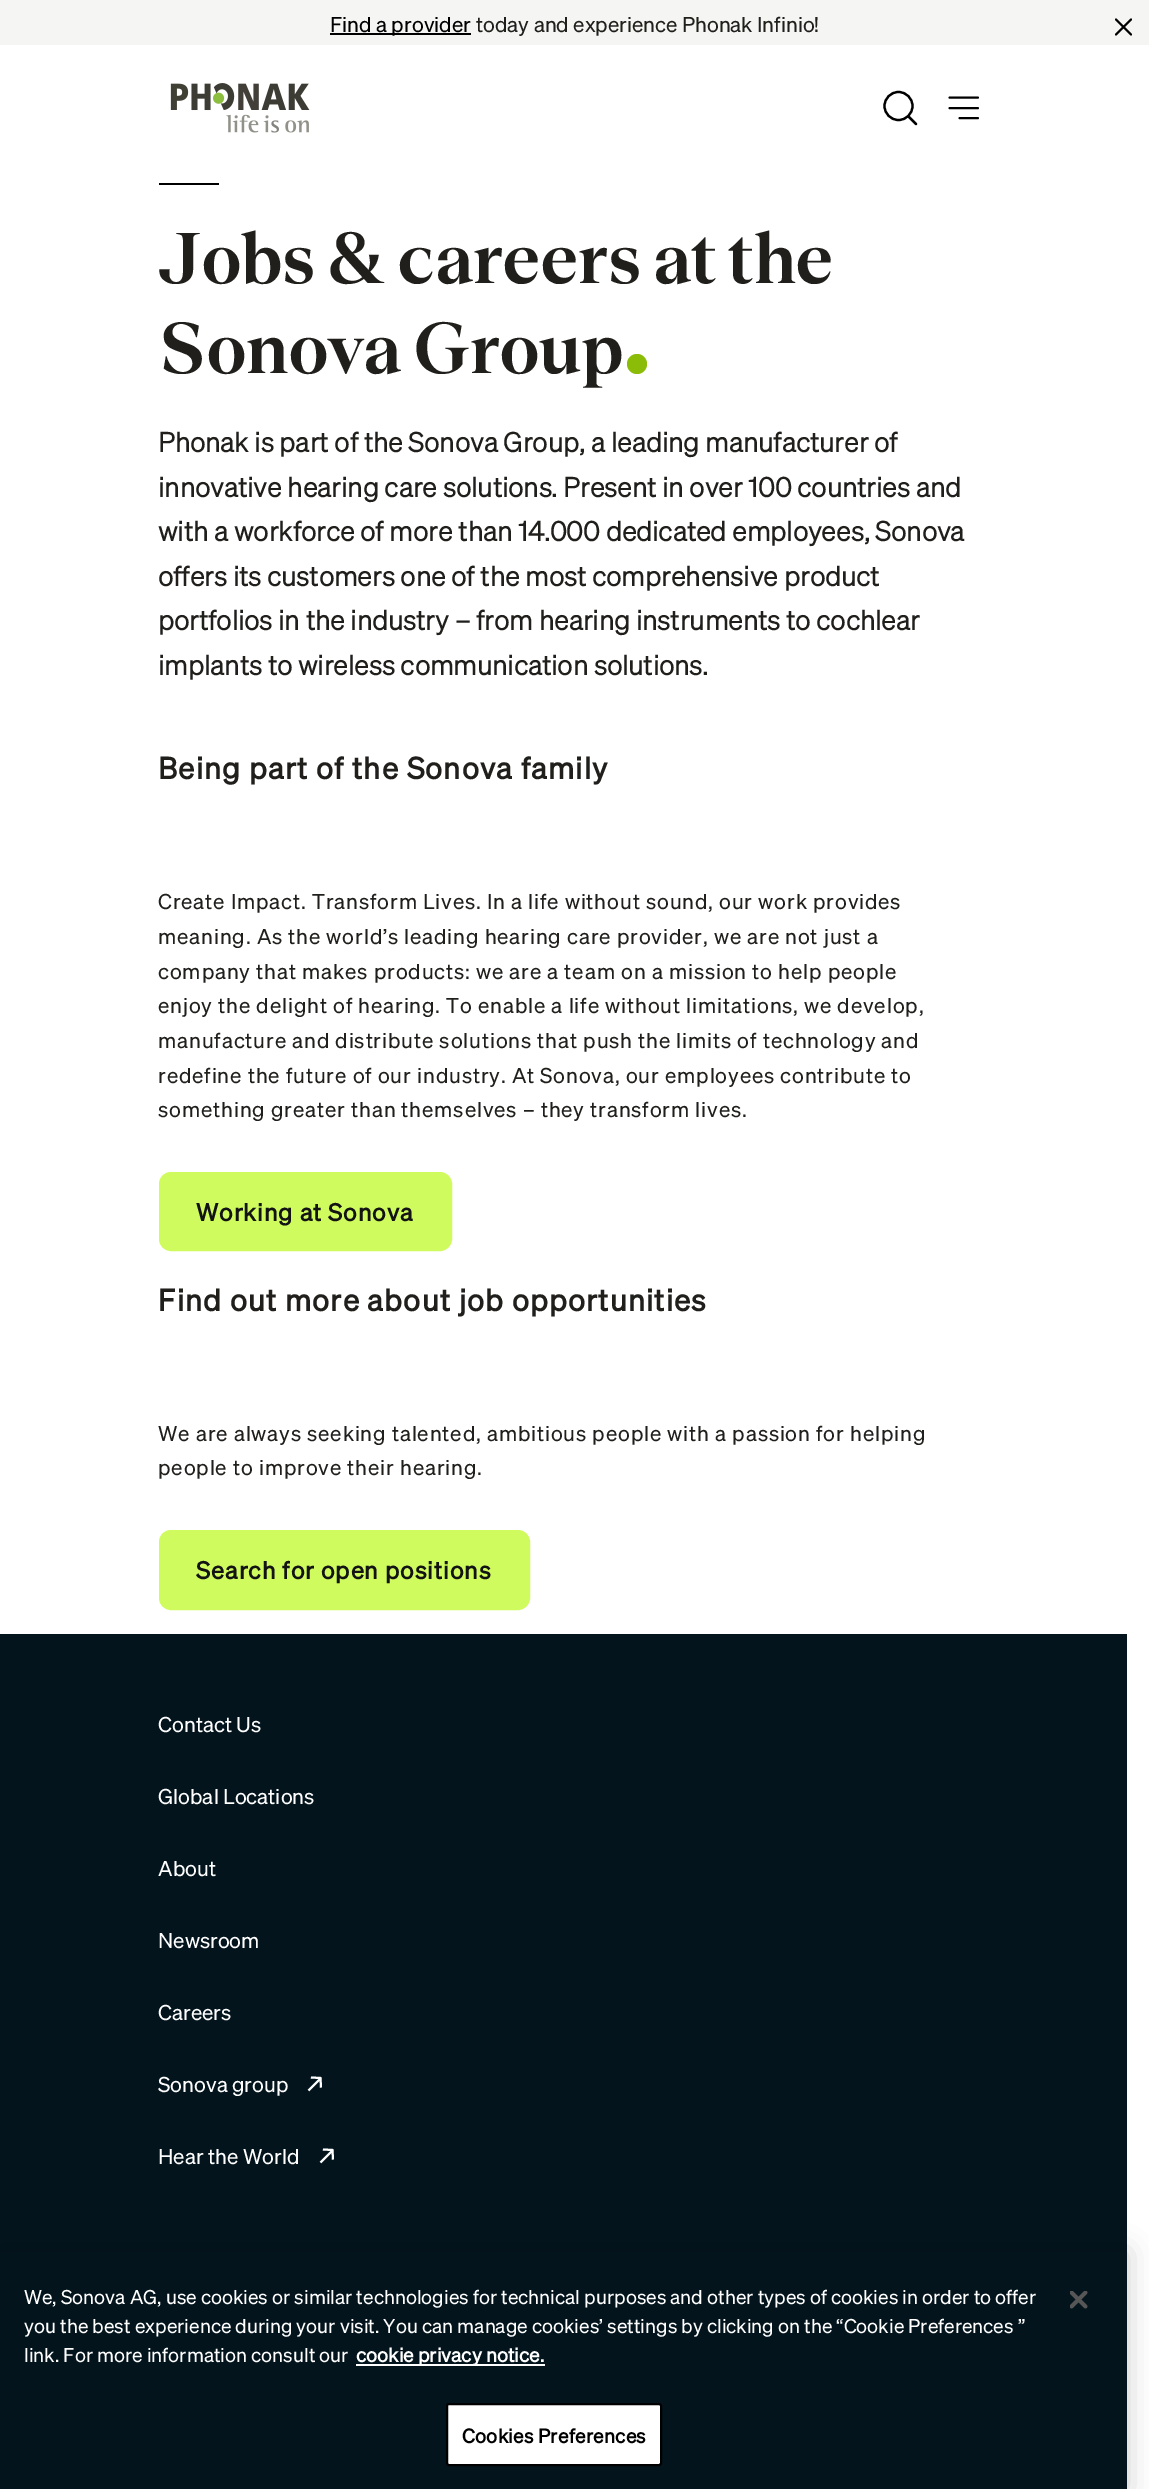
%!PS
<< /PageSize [1149 2489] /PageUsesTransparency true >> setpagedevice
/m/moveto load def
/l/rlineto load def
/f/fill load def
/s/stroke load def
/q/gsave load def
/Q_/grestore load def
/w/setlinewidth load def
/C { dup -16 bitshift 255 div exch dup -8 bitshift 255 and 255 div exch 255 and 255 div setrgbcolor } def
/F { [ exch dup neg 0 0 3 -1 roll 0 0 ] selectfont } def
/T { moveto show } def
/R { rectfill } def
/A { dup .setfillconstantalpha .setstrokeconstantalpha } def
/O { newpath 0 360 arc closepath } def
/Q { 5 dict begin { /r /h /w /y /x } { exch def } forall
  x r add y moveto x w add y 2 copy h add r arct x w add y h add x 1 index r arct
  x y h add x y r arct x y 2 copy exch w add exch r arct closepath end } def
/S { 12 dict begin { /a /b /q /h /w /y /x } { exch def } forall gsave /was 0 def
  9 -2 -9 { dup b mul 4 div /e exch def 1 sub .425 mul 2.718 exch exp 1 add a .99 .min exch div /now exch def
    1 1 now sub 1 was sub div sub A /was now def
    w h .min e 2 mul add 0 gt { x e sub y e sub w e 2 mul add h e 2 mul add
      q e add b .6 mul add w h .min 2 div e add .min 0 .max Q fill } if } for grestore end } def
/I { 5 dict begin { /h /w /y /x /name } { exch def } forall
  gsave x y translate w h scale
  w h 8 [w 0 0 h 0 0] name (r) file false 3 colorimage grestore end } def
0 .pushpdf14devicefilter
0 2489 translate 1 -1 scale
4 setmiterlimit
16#FFFFFF C
0 0 1149 2489 R
16#F5F5F3 C
0 0 1149 45 R
16#000000 C
330 33 141 2 R
/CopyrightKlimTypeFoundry-Regular 21 F
(Find a provider) 330 32 T
16#201F1C C
(today and experience Phonak Infinio!) 476 32 T
16#000000 C
1.9 w
1 setlinecap
1 setlinejoin
1116 34.5 m 15 -15 l 1131 34.5 m -15 -15 l s
(1.rgb) 170 83 140 50 I
2.2 w
0 setlinejoin
908.5 116.5 m 7.5 7.5 l s
0 setlinecap
898.5 106 14 O s
1.9 w
1 setlinecap
949.5 97.5 m 28.5 0 l 949.5 108 m 28.5 0 l 959.5 118 m 18.5 0 l s
159 183 60 2 R
/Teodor-SemiBold 75 F
16#201F1C C
(Jobs & careers at the) 158 283 T
(Sonova Group) 158 373 T
16#8BBC07 C
637 364 10 O f
/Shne-Bold 27 F
16#201F1C C
(Phonak is part of the Sonova Group, a leading manufacturer of) 158 452 T
(innovative hearing care solutions. Present in over 100 countries and) 158 497 T
(with a workforce of more than 14.000 dedicated employees, Sonova) 158 541 T
(offers its customers one of the most comprehensive product) 158 586 T
(portfolios in the industry – from hearing instruments to cochlear) 158 630 T
(implants to wireless communication solutions.) 158 675 T
/CopyrightKlimTypeFoundry-Bold 30 F
158 779 m 1.2 0 (Being part of the Sonova family) ashow
/CopyrightKlimTypeFoundry-Regular 21 F
158 909 m .85 0 (Create Impact. Transform Lives. In a life without sound, our work provides) ashow
158 944 m .85 0 (meaning. As the world’s leading hearing care provider, we are not just a) ashow
158 979 m .85 0 (company that makes products: we are a team on a mission to help people) ashow
158 1013 m .85 0 (enjoy the delight of hearing. To enable a life without limitations, we develop,) ashow
158 1048 m .85 0 (manufacture and distribute solutions that push the limits of technology and) ashow
158 1083 m .85 0 (redefine the future of our industry. At Sonova, our employees contribute to) ashow
158 1117 m .85 0 (something greater than themselves – they transform lives.) ashow
16#CFFB5E C
160 1173 291 77 11 Q q f Q_
2 w
0 setlinecap
s
/CopyrightKlimTypeFoundry-Bold 24 F
16#131313 C
196 1221 m .95 0 (Working at Sonova) ashow
/CopyrightKlimTypeFoundry-Bold 30 F
16#201F1C C
158 1311 m 1.2 0 (Find out more about job opportunities) ashow
/CopyrightKlimTypeFoundry-Regular 21 F
158 1441 m .85 0 (We are always seeking talented, ambitious people with a passion for helping) ashow
158 1475 m .85 0 (people to improve their hearing.) ashow
16#CFFB5E C
160 1531 369 78 11 Q q f Q_
s
/CopyrightKlimTypeFoundry-Bold 24 F
16#131313 C
196 1579 m .95 0 (Search for open positions) ashow
16#03141D C
0 1634 1127 618 R
/CopyrightKlimTypeFoundry-Regular 21 F
16#FFFFFF C
(Contact Us) 158 1732 T
(Global Locations) 158 1804 T
(About) 158 1876 T
(Newsroom) 158 1948 T
(Careers) 158 2020 T
(Sonova group) 158 2092 T
321 2078 m -12.5 12.5 l 311 2077.5 m 9.5 .5 l .5 9.5 l s
(Hear the World) 158 2164 T
333 2150 m -12.5 12.5 l 323 2149.5 m 9.5 .5 l .5 9.5 l s
16#000000 C
0 2252 1127 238 0 13.5 .2 S
16#03141D C
0 2252 1127 237 R
/CopyrightKlimTypeFoundry-Regular 19.5 F
16#FFFFFF C
(We, Sonova AG, use cookies or similar technologies for technical purposes and other types of cookies in order to offer) 24 2304 T
(you the best experience during your visit. You can manage cookies’ settings by clicking on the “Cookie Preferences ”) 24 2333 T
(link. For more information consult our) 24 2362 T
356 2364 189 2 R
/CopyrightKlimTypeFoundry-Bold 19.5 F
(cookie privacy notice.) 356 2362 T
447 2404 214 61 2 Q q f Q_
16#000000 C
s
462 2443 m .25 0 (Cookies Preferences) ashow
(2.rgb) 1070 2291 18 18 I
.poppdf14devicefilter showpage
